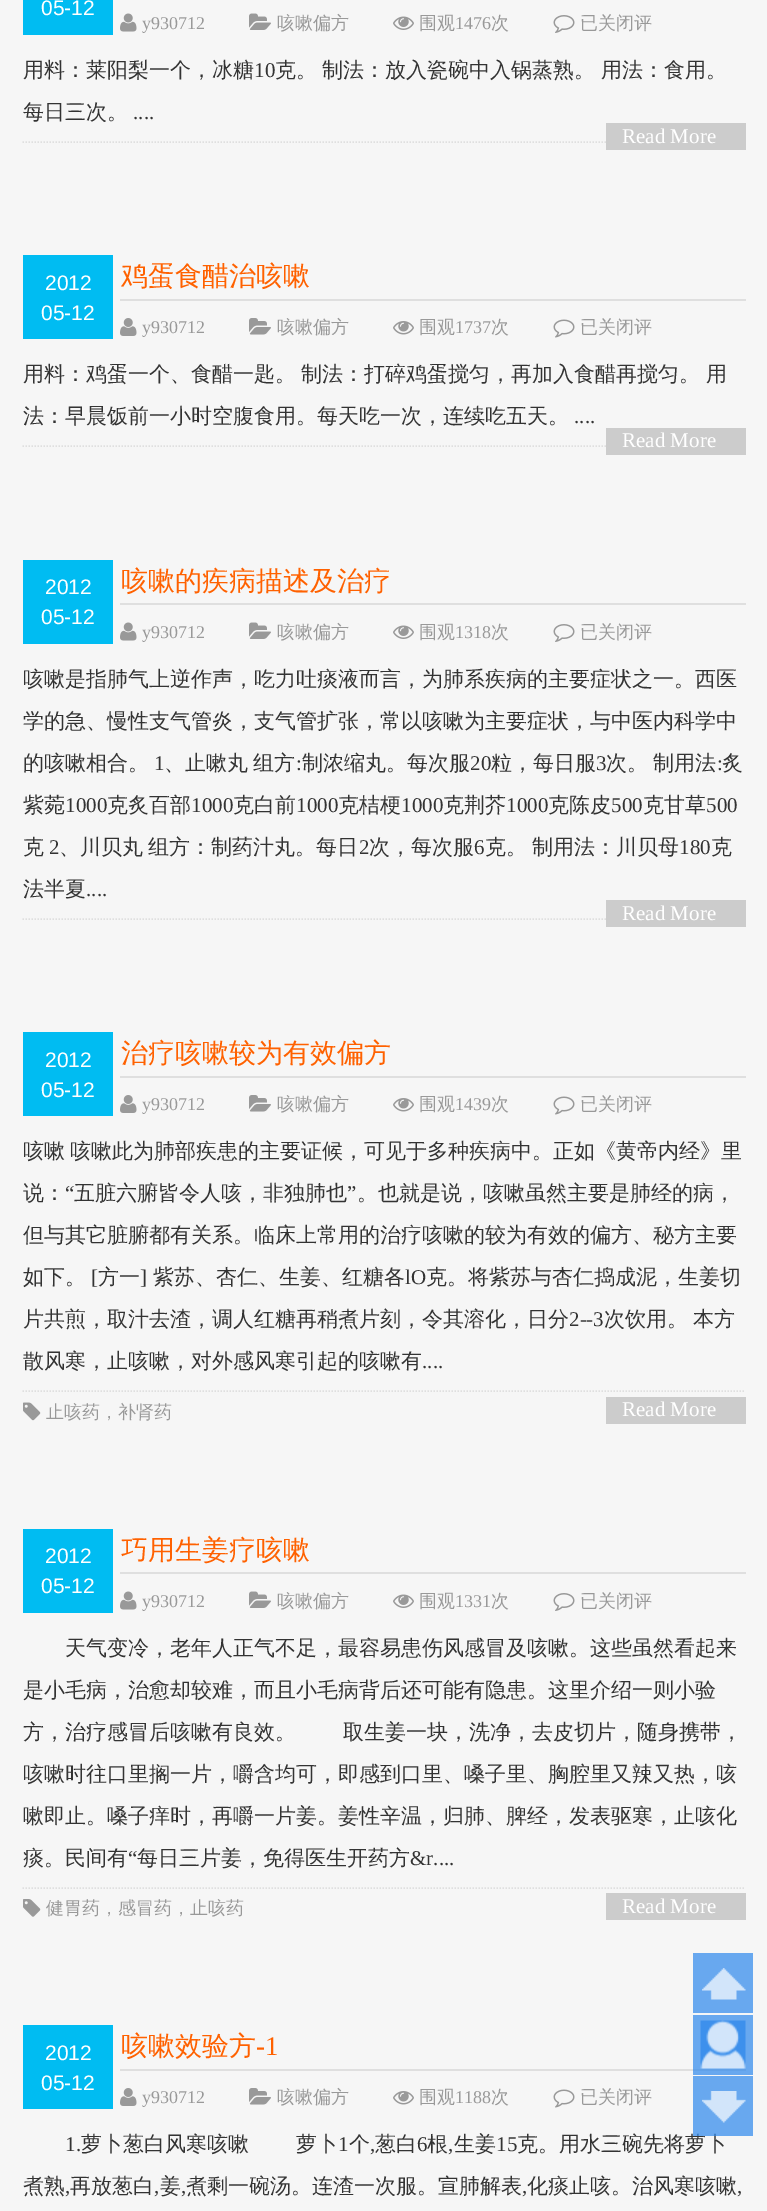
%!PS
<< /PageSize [767 2211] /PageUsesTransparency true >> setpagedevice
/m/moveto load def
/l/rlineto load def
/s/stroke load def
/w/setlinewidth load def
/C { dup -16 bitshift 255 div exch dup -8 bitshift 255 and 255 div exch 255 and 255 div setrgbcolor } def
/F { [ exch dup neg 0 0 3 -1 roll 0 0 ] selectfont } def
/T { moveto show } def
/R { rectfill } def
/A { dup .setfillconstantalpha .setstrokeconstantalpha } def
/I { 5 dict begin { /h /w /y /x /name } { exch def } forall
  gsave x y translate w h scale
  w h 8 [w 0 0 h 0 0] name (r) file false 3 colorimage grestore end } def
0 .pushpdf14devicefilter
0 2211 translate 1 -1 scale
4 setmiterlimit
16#F6F6F6 C
0 0 767 2211 R
16#68A8EF C
693 2015 60 60 R
16#00BCF2 C
23 0 90 35 R
/LiberationSans-Regular 21 F
16#FFFFFF C
(05-12) 41 15 T
(1.rgb) 120 13 17 19 I
/LiberationSerif-Regular 18 F
16#999999 C
(y930712) 142 29 T
(2.rgb) 249 13 22 17 I
/WenQuanYiZenHei-Medium 18 F
(咳嗽偏方) 277 29 T
(3.rgb) 393 16 21 14 I
(围观) 419 29 T
/LiberationSerif-Regular 18 F
(1476) 455 29 T
/WenQuanYiZenHei-Medium 18 F
(次) 491 29 T
(4.rgb) 553 15 22 18 I
(已关闭评) 580 29 T
16#DFDFDF C
1.5 w
[1.5 1.5] 0 setdash
22.5 142 m 723 0 l s
/WenQuanYiZenHei-Medium 21 F
16#333333 C
(用料：莱阳梨一个，冰糖) 23 77 T
/LiberationSerif-Regular 21 F
(10) 254 77 T
/WenQuanYiZenHei-Medium 21 F
(克。) 275 77 T
(制法：放入瓷碗中入锅蒸熟。) 322 77 T
(用法：食用。) 601 77 T
(每日三次。) 23 119 T
/LiberationSerif-Regular 21 F
(....) 133 119 T
16#CCCCCC C
606 123 140 27 R
16#FFFFFF C
(Read More) 622 143 T
16#00BCF2 C
23 255 90 84 R
/LiberationSans-Regular 21 F
16#FFFFFF C
(2012) 45 290 T
(05-12) 41 320 T
16#DFDFDF C
120 299 626 2 R
/WenQuanYiZenHei-Medium 27 F
16#FF6100 C
(鸡蛋食醋治咳嗽) 121 285 T
(5.rgb) 120 318 17 18 I
/LiberationSerif-Regular 18 F
16#999999 C
(y930712) 142 333 T
(6.rgb) 249 318 22 17 I
/WenQuanYiZenHei-Medium 18 F
(咳嗽偏方) 277 333 T
(7.rgb) 393 321 21 14 I
(围观) 419 333 T
/LiberationSerif-Regular 18 F
(1737) 455 333 T
/WenQuanYiZenHei-Medium 18 F
(次) 491 333 T
(8.rgb) 553 319 22 19 I
(已关闭评) 580 333 T
16#DFDFDF C
22.5 446 m 723 0 l s
/WenQuanYiZenHei-Medium 21 F
16#333333 C
(用料：鸡蛋一个、食醋一匙。) 23 381 T
(制法：打碎鸡蛋搅匀，再加入食醋再搅匀。) 301 381 T
(用) 706 381 T
(法：早晨饭前一小时空腹食用。每天吃一次，连续吃五天。) 23 423 T
/LiberationSerif-Regular 21 F
(....) 574 423 T
16#CCCCCC C
606 428 140 27 R
16#FFFFFF C
(Read More) 622 447 T
16#00BCF2 C
23 560 90 84 R
/LiberationSans-Regular 21 F
16#FFFFFF C
(2012) 45 594 T
(05-12) 41 624 T
16#DFDFDF C
120 603 626 2 R
/WenQuanYiZenHei-Medium 27 F
16#FF6100 C
(咳嗽的疾病描述及治疗) 121 590 T
(1.rgb) 120 622 17 19 I
/LiberationSerif-Regular 18 F
16#999999 C
(y930712) 142 638 T
(2.rgb) 249 622 22 17 I
/WenQuanYiZenHei-Medium 18 F
(咳嗽偏方) 277 638 T
(3.rgb) 393 625 21 14 I
(围观) 419 638 T
/LiberationSerif-Regular 18 F
(1318) 455 638 T
/WenQuanYiZenHei-Medium 18 F
(次) 491 638 T
(4.rgb) 553 624 22 18 I
(已关闭评) 580 638 T
16#DFDFDF C
22.5 919 m 723 0 l s
/WenQuanYiZenHei-Medium 21 F
16#333333 C
(咳嗽是指肺气上逆作声，吃力吐痰液而言，为肺系疾病的主要症状之一。西医) 23 686 T
(学的急、慢性支气管炎，支气管扩张，常以咳嗽为主要症状，与中医内科学中) 23 728 T
(的咳嗽相合。) 23 770 T
/LiberationSerif-Regular 21 F
(1) 154 770 T
/WenQuanYiZenHei-Medium 21 F
164 770 m -1 0 32 (、止嗽丸 组方) widthshow
/LiberationSerif-Regular 21 F
(:) 296 770 T
/WenQuanYiZenHei-Medium 21 F
(制浓缩丸。每次服) 302 770 T
/LiberationSerif-Regular 21 F
(20) 470 770 T
/WenQuanYiZenHei-Medium 21 F
(粒，每日服) 491 770 T
/LiberationSerif-Regular 21 F
(3) 596 770 T
/WenQuanYiZenHei-Medium 21 F
606 770 m -1 0 32 (次。 制用法) widthshow
/LiberationSerif-Regular 21 F
(:) 717 770 T
/WenQuanYiZenHei-Medium 21 F
(炙) 722 770 T
(紫菀) 23 812 T
/LiberationSerif-Regular 21 F
(1000) 65 812 T
/WenQuanYiZenHei-Medium 21 F
(克炙百部) 107 812 T
/LiberationSerif-Regular 21 F
(1000) 191 812 T
/WenQuanYiZenHei-Medium 21 F
(克白前) 233 812 T
/LiberationSerif-Regular 21 F
(1000) 296 812 T
/WenQuanYiZenHei-Medium 21 F
(克桔梗) 338 812 T
/LiberationSerif-Regular 21 F
(1000) 401 812 T
/WenQuanYiZenHei-Medium 21 F
(克荆芥) 443 812 T
/LiberationSerif-Regular 21 F
(1000) 506 812 T
/WenQuanYiZenHei-Medium 21 F
(克陈皮) 548 812 T
/LiberationSerif-Regular 21 F
(500) 611 812 T
/WenQuanYiZenHei-Medium 21 F
(克甘草) 643 812 T
/LiberationSerif-Regular 21 F
(500) 706 812 T
/WenQuanYiZenHei-Medium 21 F
(克) 23 854 T
/LiberationSerif-Regular 21 F
(2) 49 854 T
/WenQuanYiZenHei-Medium 21 F
59 854 m -1 0 32 (、川贝丸 组方：制药汁丸。每日) widthshow
/LiberationSerif-Regular 21 F
(2) 359 854 T
/WenQuanYiZenHei-Medium 21 F
(次，每次服) 369 854 T
/LiberationSerif-Regular 21 F
(6) 474 854 T
/WenQuanYiZenHei-Medium 21 F
485 854 m -1 0 32 (克。 制用法：川贝母) widthshow
/LiberationSerif-Regular 21 F
(180) 679 854 T
/WenQuanYiZenHei-Medium 21 F
(克) 711 854 T
(法半夏) 23 896 T
/LiberationSerif-Regular 21 F
(....) 86 896 T
16#CCCCCC C
606 900 140 27 R
16#FFFFFF C
(Read More) 622 920 T
16#00BCF2 C
23 1032 90 84 R
/LiberationSans-Regular 21 F
16#FFFFFF C
(2012) 45 1067 T
(05-12) 41 1097 T
16#DFDFDF C
120 1076 626 2 R
/WenQuanYiZenHei-Medium 27 F
16#FF6100 C
(治疗咳嗽较为有效偏方) 121 1062 T
(5.rgb) 120 1095 17 18 I
/LiberationSerif-Regular 18 F
16#999999 C
(y930712) 142 1110 T
(6.rgb) 249 1095 22 17 I
/WenQuanYiZenHei-Medium 18 F
(咳嗽偏方) 277 1110 T
(7.rgb) 393 1098 21 14 I
(围观) 419 1110 T
/LiberationSerif-Regular 18 F
(1439) 455 1110 T
/WenQuanYiZenHei-Medium 18 F
(次) 491 1110 T
(8.rgb) 553 1096 22 19 I
(已关闭评) 580 1110 T
16#DFDFDF C
22.5 1391 m 723 0 l s
/WenQuanYiZenHei-Medium 21 F
16#333333 C
23 1158 m -1 0 32 (咳嗽 咳嗽此为肺部疾患的主要证候，可见于多种疾病中。正如《黄帝内经》里) widthshow
(说：) 23 1200 T
/LiberationSerif-Regular 21 F
(“) 65 1200 T
/WenQuanYiZenHei-Medium 21 F
(五脏六腑皆令人咳，非独肺也) 74 1200 T
/LiberationSerif-Regular 21 F
(”) 347 1200 T
/WenQuanYiZenHei-Medium 21 F
(。也就是说，咳嗽虽然主要是肺经的病，) 357 1200 T
(但与其它脏腑都有关系。临床上常用的治疗咳嗽的较为有效的偏方、秘方主要) 23 1242 T
(如下。) 23 1284 T
/LiberationSerif-Regular 21 F
([) 91 1284 T
/WenQuanYiZenHei-Medium 21 F
(方一) 98 1284 T
/LiberationSerif-Regular 21 F
(]) 140 1284 T
/WenQuanYiZenHei-Medium 21 F
(紫苏、杏仁、生姜、红糖各) 153 1284 T
/LiberationSerif-Regular 21 F
(lO) 405 1284 T
/WenQuanYiZenHei-Medium 21 F
(克。将紫苏与杏仁捣成泥，生姜切) 426 1284 T
(片共煎，取汁去渣，调人红糖再稍煮片刻，令其溶化，日分) 23 1326 T
/LiberationSerif-Regular 21 F
(2--3) 569 1326 T
/WenQuanYiZenHei-Medium 21 F
604 1326 m -1 0 32 (次饮用。 本方) widthshow
(散风寒，止咳嗽，对外感风寒引起的咳嗽有) 23 1368 T
/LiberationSerif-Regular 21 F
(....) 422 1368 T
16#CCCCCC C
606 1397 140 27 R
16#FFFFFF C
(Read More) 622 1416 T
(9.rgb) 23 1402 18 19 I
/WenQuanYiZenHei-Medium 18 F
16#999999 C
(止咳药，补肾药) 46 1418 T
16#00BCF2 C
23 1529 90 84 R
/LiberationSans-Regular 21 F
16#FFFFFF C
(2012) 45 1563 T
(05-12) 41 1593 T
16#DFDFDF C
120 1572 626 2 R
/WenQuanYiZenHei-Medium 27 F
16#FF6100 C
(巧用生姜疗咳嗽) 121 1559 T
(1.rgb) 120 1591 17 19 I
/LiberationSerif-Regular 18 F
16#999999 C
(y930712) 142 1607 T
(2.rgb) 249 1591 22 17 I
/WenQuanYiZenHei-Medium 18 F
(咳嗽偏方) 277 1607 T
(3.rgb) 393 1594 21 14 I
(围观) 419 1607 T
/LiberationSerif-Regular 18 F
(1331) 455 1607 T
/WenQuanYiZenHei-Medium 18 F
(次) 491 1607 T
(4.rgb) 553 1593 22 18 I
(已关闭评) 580 1607 T
16#DFDFDF C
22.5 1888 m 723 0 l s
/WenQuanYiZenHei-Medium 21 F
16#333333 C
(天气变冷，老年人正气不足，最容易患伤风感冒及咳嗽。这些虽然看起来) 65 1655 T
(是小毛病，治愈却较难，而且小毛病背后还可能有隐患。这里介绍一则小验) 23 1697 T
(方，治疗感冒后咳嗽有良效。) 23 1739 T
(取生姜一块，洗净，去皮切片，随身携带，) 343 1739 T
(咳嗽时往口里搁一片，嚼含均可，即感到口里、嗓子里、胸腔里又辣又热，咳) 23 1781 T
(嗽即止。嗓子痒时，再嚼一片姜。姜性辛温，归肺、脾经，发表驱寒，止咳化) 23 1823 T
(痰。民间有) 23 1865 T
/LiberationSerif-Regular 21 F
(“) 128 1865 T
/WenQuanYiZenHei-Medium 21 F
(每日三片姜，免得医生开药方) 137 1865 T
/LiberationSerif-Regular 21 F
(&r....) 410 1865 T
16#CCCCCC C
606 1893 140 27 R
16#FFFFFF C
(Read More) 622 1913 T
(10.rgb) 23 1899 18 18 I
/WenQuanYiZenHei-Medium 18 F
16#999999 C
(健胃药，感冒药，止咳药) 46 1914 T
16#00BCF2 C
23 2025 90 84 R
/LiberationSans-Regular 21 F
16#FFFFFF C
(2012) 45 2060 T
(05-12) 41 2090 T
16#DFDFDF C
120 2069 573 2 R
16#61A1E8 C
693 2069 53 2 R
/WenQuanYiZenHei-Medium 27 F
16#FF6100 C
(咳嗽效验方) 121 2055 T
/LiberationSerif-Regular 27 F
(-1) 256 2055 T
(5.rgb) 120 2088 17 18 I
/LiberationSerif-Regular 18 F
16#999999 C
(y930712) 142 2103 T
(6.rgb) 249 2088 22 17 I
/WenQuanYiZenHei-Medium 18 F
(咳嗽偏方) 277 2103 T
(7.rgb) 393 2091 21 14 I
(围观) 419 2103 T
/LiberationSerif-Regular 18 F
(1188) 455 2103 T
/WenQuanYiZenHei-Medium 18 F
(次) 491 2103 T
(8.rgb) 553 2089 22 19 I
(已关闭评) 580 2103 T
/LiberationSerif-Regular 21 F
16#333333 C
(1.) 65 2151 T
/WenQuanYiZenHei-Medium 21 F
(萝卜葱白风寒咳嗽) 81 2151 T
(萝卜) 296 2151 T
/LiberationSerif-Regular 21 F
(1) 338 2151 T
/WenQuanYiZenHei-Medium 21 F
(个) 349 2151 T
/LiberationSerif-Regular 21 F
(,) 370 2151 T
/WenQuanYiZenHei-Medium 21 F
(葱白) 375 2151 T
/LiberationSerif-Regular 21 F
(6) 417 2151 T
/WenQuanYiZenHei-Medium 21 F
(根) 427 2151 T
/LiberationSerif-Regular 21 F
(,) 448 2151 T
/WenQuanYiZenHei-Medium 21 F
(生姜) 454 2151 T
/LiberationSerif-Regular 21 F
(15) 496 2151 T
/WenQuanYiZenHei-Medium 21 F
(克。用水三碗先将萝卜) 517 2151 T
(煮熟) 23 2193 T
/LiberationSerif-Regular 21 F
(,) 65 2193 T
/WenQuanYiZenHei-Medium 21 F
(再放葱白) 70 2193 T
/LiberationSerif-Regular 21 F
(,) 154 2193 T
/WenQuanYiZenHei-Medium 21 F
(姜) 160 2193 T
/LiberationSerif-Regular 21 F
(,) 181 2193 T
/WenQuanYiZenHei-Medium 21 F
(煮剩一碗汤。连渣一次服。宣肺解表) 186 2193 T
/LiberationSerif-Regular 21 F
(,) 522 2193 T
/WenQuanYiZenHei-Medium 21 F
(化痰止咳。治风寒咳嗽) 527 2193 T
/LiberationSerif-Regular 21 F
(,) 737 2193 T
16#68A8EF C
693 1953 60 60 R
(11.rgb) 702 1968 44 32 I
(12.rgb) 700 2020 46 49 I
0.7 A
16#2B87EC C
693 2076 60 60 R
1 A
(13.rgb) 702 2091 44 32 I
.poppdf14devicefilter showpage
